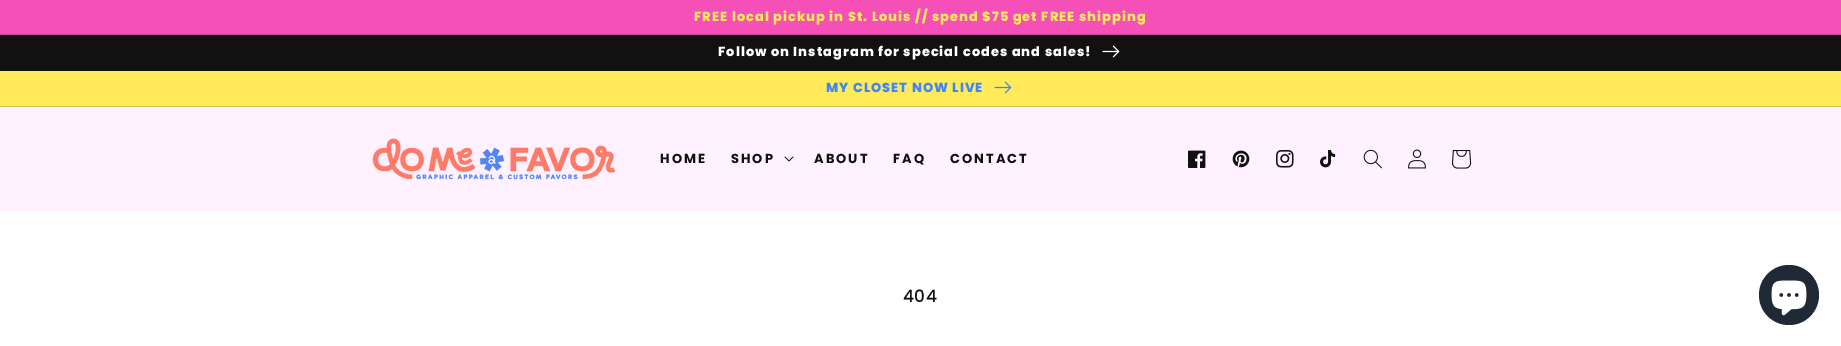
%!PS
<< /PageSize [1841 346] >> setpagedevice
/m/moveto load def
/f/fill load def
/C { dup -16 bitshift 255 div exch dup -8 bitshift 255 and 255 div exch 255 and 255 div setrgbcolor } def
/F { [ exch dup neg 0 0 3 -1 roll 0 0 ] selectfont } def
/R { rectfill } def
/O { newpath 0 360 arc closepath } def
/I { 5 dict begin { /h /w /y /x /name } { exch def } forall
  gsave x y translate w h scale
  w h 8 [w 0 0 h 0 0] name (r) file false 3 colorimage grestore end } def
0 346 translate 1 -1 scale
4 setmiterlimit
16#FFFFFF C
0 0 1841 346 R
16#F450B7 C
0 0 1841 34 R
16#C74396 C
0 34 1841 1 R
/Poppins-ExtraBold 13 F
16#FFEA5A C
694 21 m 1 0 (FREE local pickup in St. Louis // spend $75 get FREE shipping) ashow
16#111111 C
0 35 1841 36 R
16#FFFFFF C
718 56 m 1 0 (Follow on Instagram for special codes and sales!) ashow
(1.rgb) 1102 45 18 13 I
16#FFEA5A C
0 71 1841 35 R
16#CFBF4B C
0 106 1841 1 R
16#3E86FF C
826 92 m 1 0 (MY CLOSET NOW LIVE) ashow
(2.rgb) 994 81 18 13 I
16#FFF1FF C
0 107 1841 104 R
(3.rgb) 372 138 244 42 I
/Poppins-Bold 13 F
16#111111 C
660 163 m 2 0 (HOME) ashow
731 163 m 2 0 (SHOP) ashow
(4.rgb) 784 156 10 6 I
814 163 m 2 0 (ABOUT) ashow
893 163 m 2 0 (FAQ) ashow
950 163 m 2 0 (CONTACT) ashow
(5.rgb) 1188 150 18 18 I
(6.rgb) 1232 150 18 18 I
(7.rgb) 1276 150 18 18 I
(8.rgb) 1320 150 16 18 I
(9.rgb) 1363 149 19 20 I
(10.rgb) 1408 149 18 20 I
(11.rgb) 1452 150 20 19 I
/Poppins-Medium 17 F
903 302 m .5 0 (404) ashow
16#202A36 C
1789 295 30 O f
(12.rgb) 1771 280 36 36 I
showpage
